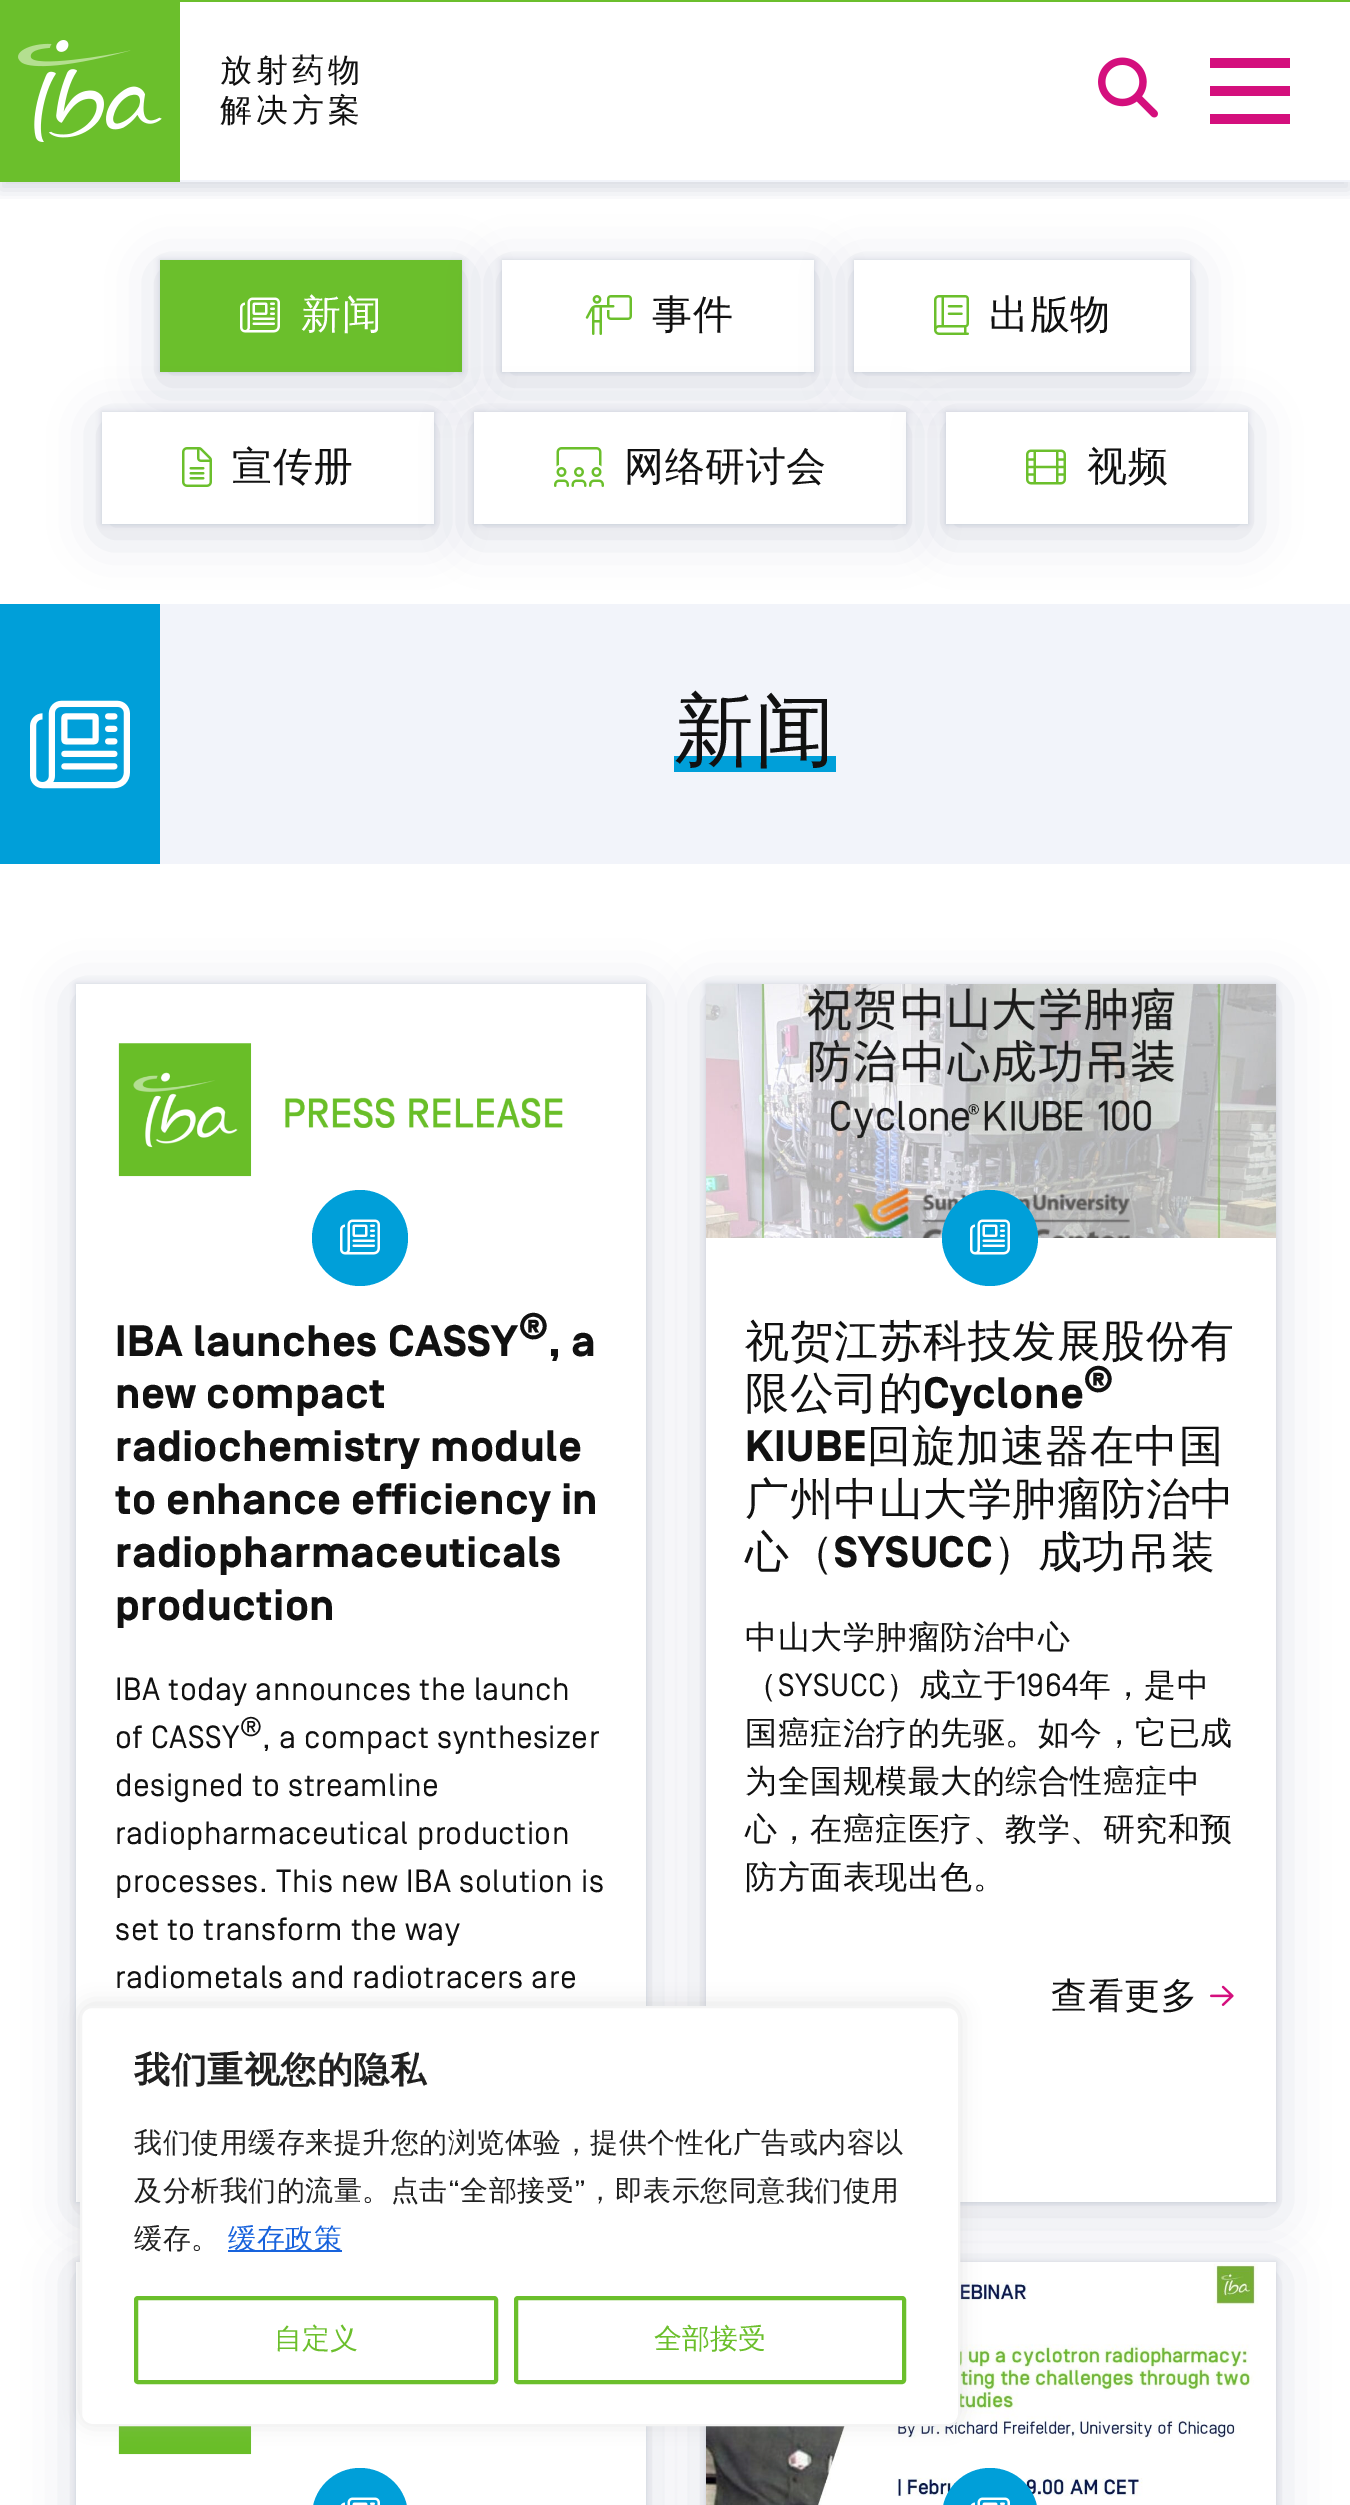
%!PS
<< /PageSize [1350 2505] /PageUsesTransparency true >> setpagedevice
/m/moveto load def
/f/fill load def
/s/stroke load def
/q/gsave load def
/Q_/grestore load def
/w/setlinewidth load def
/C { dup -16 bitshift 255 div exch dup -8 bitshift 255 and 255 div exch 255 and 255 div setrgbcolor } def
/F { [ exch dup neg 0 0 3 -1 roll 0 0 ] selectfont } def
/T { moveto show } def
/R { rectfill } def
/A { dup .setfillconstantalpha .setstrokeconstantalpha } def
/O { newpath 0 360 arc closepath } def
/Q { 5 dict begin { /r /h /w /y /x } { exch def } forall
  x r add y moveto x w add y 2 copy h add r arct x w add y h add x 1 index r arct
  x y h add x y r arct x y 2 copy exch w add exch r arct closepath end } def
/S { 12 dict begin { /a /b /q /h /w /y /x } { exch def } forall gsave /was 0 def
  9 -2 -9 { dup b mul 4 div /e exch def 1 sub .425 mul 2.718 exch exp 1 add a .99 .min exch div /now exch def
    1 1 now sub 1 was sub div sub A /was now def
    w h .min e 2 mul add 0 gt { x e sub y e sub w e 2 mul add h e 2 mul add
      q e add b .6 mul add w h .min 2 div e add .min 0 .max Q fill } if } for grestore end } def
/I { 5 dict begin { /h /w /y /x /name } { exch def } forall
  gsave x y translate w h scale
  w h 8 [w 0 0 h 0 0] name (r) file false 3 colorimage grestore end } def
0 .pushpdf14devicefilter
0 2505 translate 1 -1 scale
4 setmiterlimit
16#FFFFFF C
0 0 1350 2505 R
q
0 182 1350 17 rectclip
16#091E42 C
0 10 1350 180 0 8 .15 S
Q_
16#6BBF2C C
0 0 1350 2 R
0 2 180 180 R
(1.rgb) 18 40 144 102 I
/WenQuanYiZenHei-Medium 32 F
16#111111 C
220 81 m 4 0 (放射药物) ashow
220 121 m 4 0 (解决方案) ashow
(2.rgb) 1098 57 60 61 I
16#F2F4FA C
180 180 1170 2 R
16#091E42 C
160 260 302 112 0 3 .15 S
160 270 302 112 0 25 .15 S
16#6BBF2C C
160 260 302 112 R
(3.rgb) 240 297 40 36 I
/WenQuanYiZenHei-Medium 40 F
16#FFFFFF C
301 328 m .5 0 (新闻) ashow
16#091E42 C
502 260 312 112 0 3 .15 S
502 270 312 112 0 25 .15 S
16#FFFFFF C
502 260 312 112 R
(4.rgb) 585 295 47 40 I
16#111111 C
652 328 m .5 0 (事件) ashow
16#091E42 C
854 260 336 112 0 3 .15 S
854 270 336 112 0 25 .15 S
16#FFFFFF C
854 260 336 112 R
(5.rgb) 934 295 35 40 I
16#111111 C
989 328 m .5 0 (出版物) ashow
16#091E42 C
102 412 332 112 0 3 .15 S
102 422 332 112 0 25 .15 S
16#FFFFFF C
102 412 332 112 R
(6.rgb) 182 447 30 40 I
16#111111 C
232 480 m .5 0 (宣传册) ashow
16#091E42 C
474 412 432 112 0 3 .15 S
474 422 432 112 0 25 .15 S
16#FFFFFF C
474 412 432 112 R
(7.rgb) 554 447 50 40 I
16#111111 C
624 480 m .5 0 (网络研讨会) ashow
16#091E42 C
946 412 302 112 0 3 .15 S
946 422 302 112 0 25 .15 S
16#FFFFFF C
946 412 302 112 R
(8.rgb) 1026 449 40 36 I
16#111111 C
1087 480 m .5 0 (视频) ashow
16#F2F4FA C
160 604 1190 260 R
16#009FD9 C
0 604 160 260 R
(9.rgb) 30 700 100 89 I
674 756 162 16 R
/WenQuanYiZenHei-Medium 80 F
16#111111 C
674 758 m 1 0 (新闻) ashow
16#091E42 C
76 984 570 1218 0 3 .15 S
76 994 570 1218 0 25 .15 S
16#FFFFFF C
76 1238 570 964 R
16#091E42 C
706 994 570 1218 0 25 .15 S
(10.rgb) 76 984 570 254 I
16#009FD9 C
360 1238 48 O f
(11.rgb) 340 1219 40 36 I
/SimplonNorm-Bold 44 F
16#111111 C
115 1356 m .5 0 (IBA launches CASSY) ashow
/SimplonNorm-Bold 37 F
519 1339 m .5 0 (®) ashow
/SimplonNorm-Bold 44 F
548 1356 m .5 0 (, a) ashow
115 1408 m .5 0 (new compact) ashow
115 1461 m .5 0 (radiochemistry module) ashow
115 1514 m .5 0 (to enhance efficiency in) ashow
115 1567 m .5 0 (radiopharmaceuticals) ashow
115 1620 m .5 0 (production) ashow
/SimplonNorm-Regular 32 F
115 1700 m .5 0 (IBA today announces the launch) ashow
115 1748 m .5 0 (of CASSY) ashow
/SimplonNorm-Regular 27 F
240 1736 m .5 0 (®) ashow
/SimplonNorm-Regular 32 F
262 1748 m .5 0 (, a compact synthesizer) ashow
115 1796 m .5 0 (designed to streamline) ashow
115 1844 m .5 0 (radiopharmaceutical production) ashow
115 1892 m .5 0 (processes. This new IBA solution is) ashow
115 1940 m .5 0 (set to transform the way) ashow
115 1988 m .5 0 (radiometals and radiotracers are) ashow
16#091E42 C
706 984 570 1218 0 3 .15 S
16#FFFFFF C
706 1238 570 964 R
(12.rgb) 706 984 570 254 I
16#009FD9 C
990 1238 48 O f
(11.rgb) 970 1219 40 36 I
/WenQuanYiZenHei-Medium 44 F
16#111111 C
745 1356 m .5 0 (祝贺江苏科技发展股份有) ashow
745 1408 m .5 0 (限公司的) ashow
/SimplonNorm-Bold 44 F
923 1408 m .5 0 (Cyclone) ashow
/SimplonNorm-Bold 37 F
1084 1392 m .5 0 (®) ashow
/SimplonNorm-Bold 44 F
745 1461 m .5 0 (KIUBE) ashow
/WenQuanYiZenHei-Medium 44 F
867 1461 m .5 0 (回旋加速器在中国) ashow
745 1514 m .5 0 (广州中山大学肿瘤防治中) ashow
745 1567 m .5 0 (心（) ashow
/SimplonNorm-Bold 44 F
834 1567 m .5 0 (SYSUCC) ashow
/WenQuanYiZenHei-Medium 44 F
993 1567 m .5 0 (）成功吊装) ashow
/WenQuanYiZenHei-Medium 32 F
745 1648 m .5 0 (中山大学肿瘤防治中心) ashow
745 1696 m .5 0 (（) ashow
/SimplonNorm-Regular 32 F
778 1696 m .5 0 (SYSUCC) ashow
/WenQuanYiZenHei-Medium 32 F
886 1696 m .5 0 (）成立于) ashow
/SimplonNorm-Regular 32 F
1016 1696 m .5 0 (1964) ashow
/WenQuanYiZenHei-Medium 32 F
1079 1696 m .5 0 (年，是中) ashow
745 1744 m .5 0 (国癌症治疗的先驱。如今，它已成) ashow
745 1792 m .5 0 (为全国规模最大的综合性癌症中) ashow
745 1840 m .5 0 (心，在癌症医疗、教学、研究和预) ashow
745 1888 m .5 0 (防方面表现出色。) ashow
/WenQuanYiZenHei-Medium 36 F
1051 2008 m .5 0 (查看更多) ashow
(13.rgb) 1210 1985 24 21 I
16#091E42 C
76 2262 570 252 0 3 .15 S
76 2272 570 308 0 25 .15 S
706 2272 570 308 0 25 .15 S
(14.rgb) 76 2262 570 243 I
16#009FD9 C
312 2468 96 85 48 Q f
(15.rgb) 340 2497 40 8 I
16#091E42 C
706 2262 570 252 0 3 .15 S
(16.rgb) 706 2262 570 243 I
16#009FD9 C
942 2468 96 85 48 Q f
(15.rgb) 970 2497 40 8 I
16#D40F7D C
1210 58 80 10 R
1210 86 80 10 R
1210 114 80 10 R
16#ACABAB C
80 2004 880 420 12 10 .3 S
16#FFFFFF C
81 2007 878 418 11 Q q f Q_
16#F4F4F4 C
2 w
s
/WenQuanYiZenHei-Bold 36 F
16#212121 C
134 2082 m .5 0 (我们重视您的隐私) ashow
/WenQuanYiZenHei-Medium 28 F
134 2152 m .5 0 (我们使用缓存来提升您的浏览体验，提供个性化广告或内容以) ashow
134 2200 m .5 0 (及分析我们的流量。点击) ashow
/SimplonNorm-Regular 28 F
448 2200 m .5 0 (“) ashow
/WenQuanYiZenHei-Medium 28 F
460 2200 m .5 0 (全部接受) ashow
/SimplonNorm-Regular 28 F
574 2200 m .5 0 (”) ashow
/WenQuanYiZenHei-Medium 28 F
586 2200 m .5 0 (，即表示您同意我们使用) ashow
134 2248 m .5 0 (缓存。) ashow
16#1863DC C
228 2250 114 2 R
228 2248 m .5 0 (缓存政策) ashow
16#6BBF2C C
4 w
136 2298 360 84 2 Q s
(自定义) 274 2348 T
516 2298 388 84 2 Q s
(全部接受) 654 2348 T
.poppdf14devicefilter showpage
